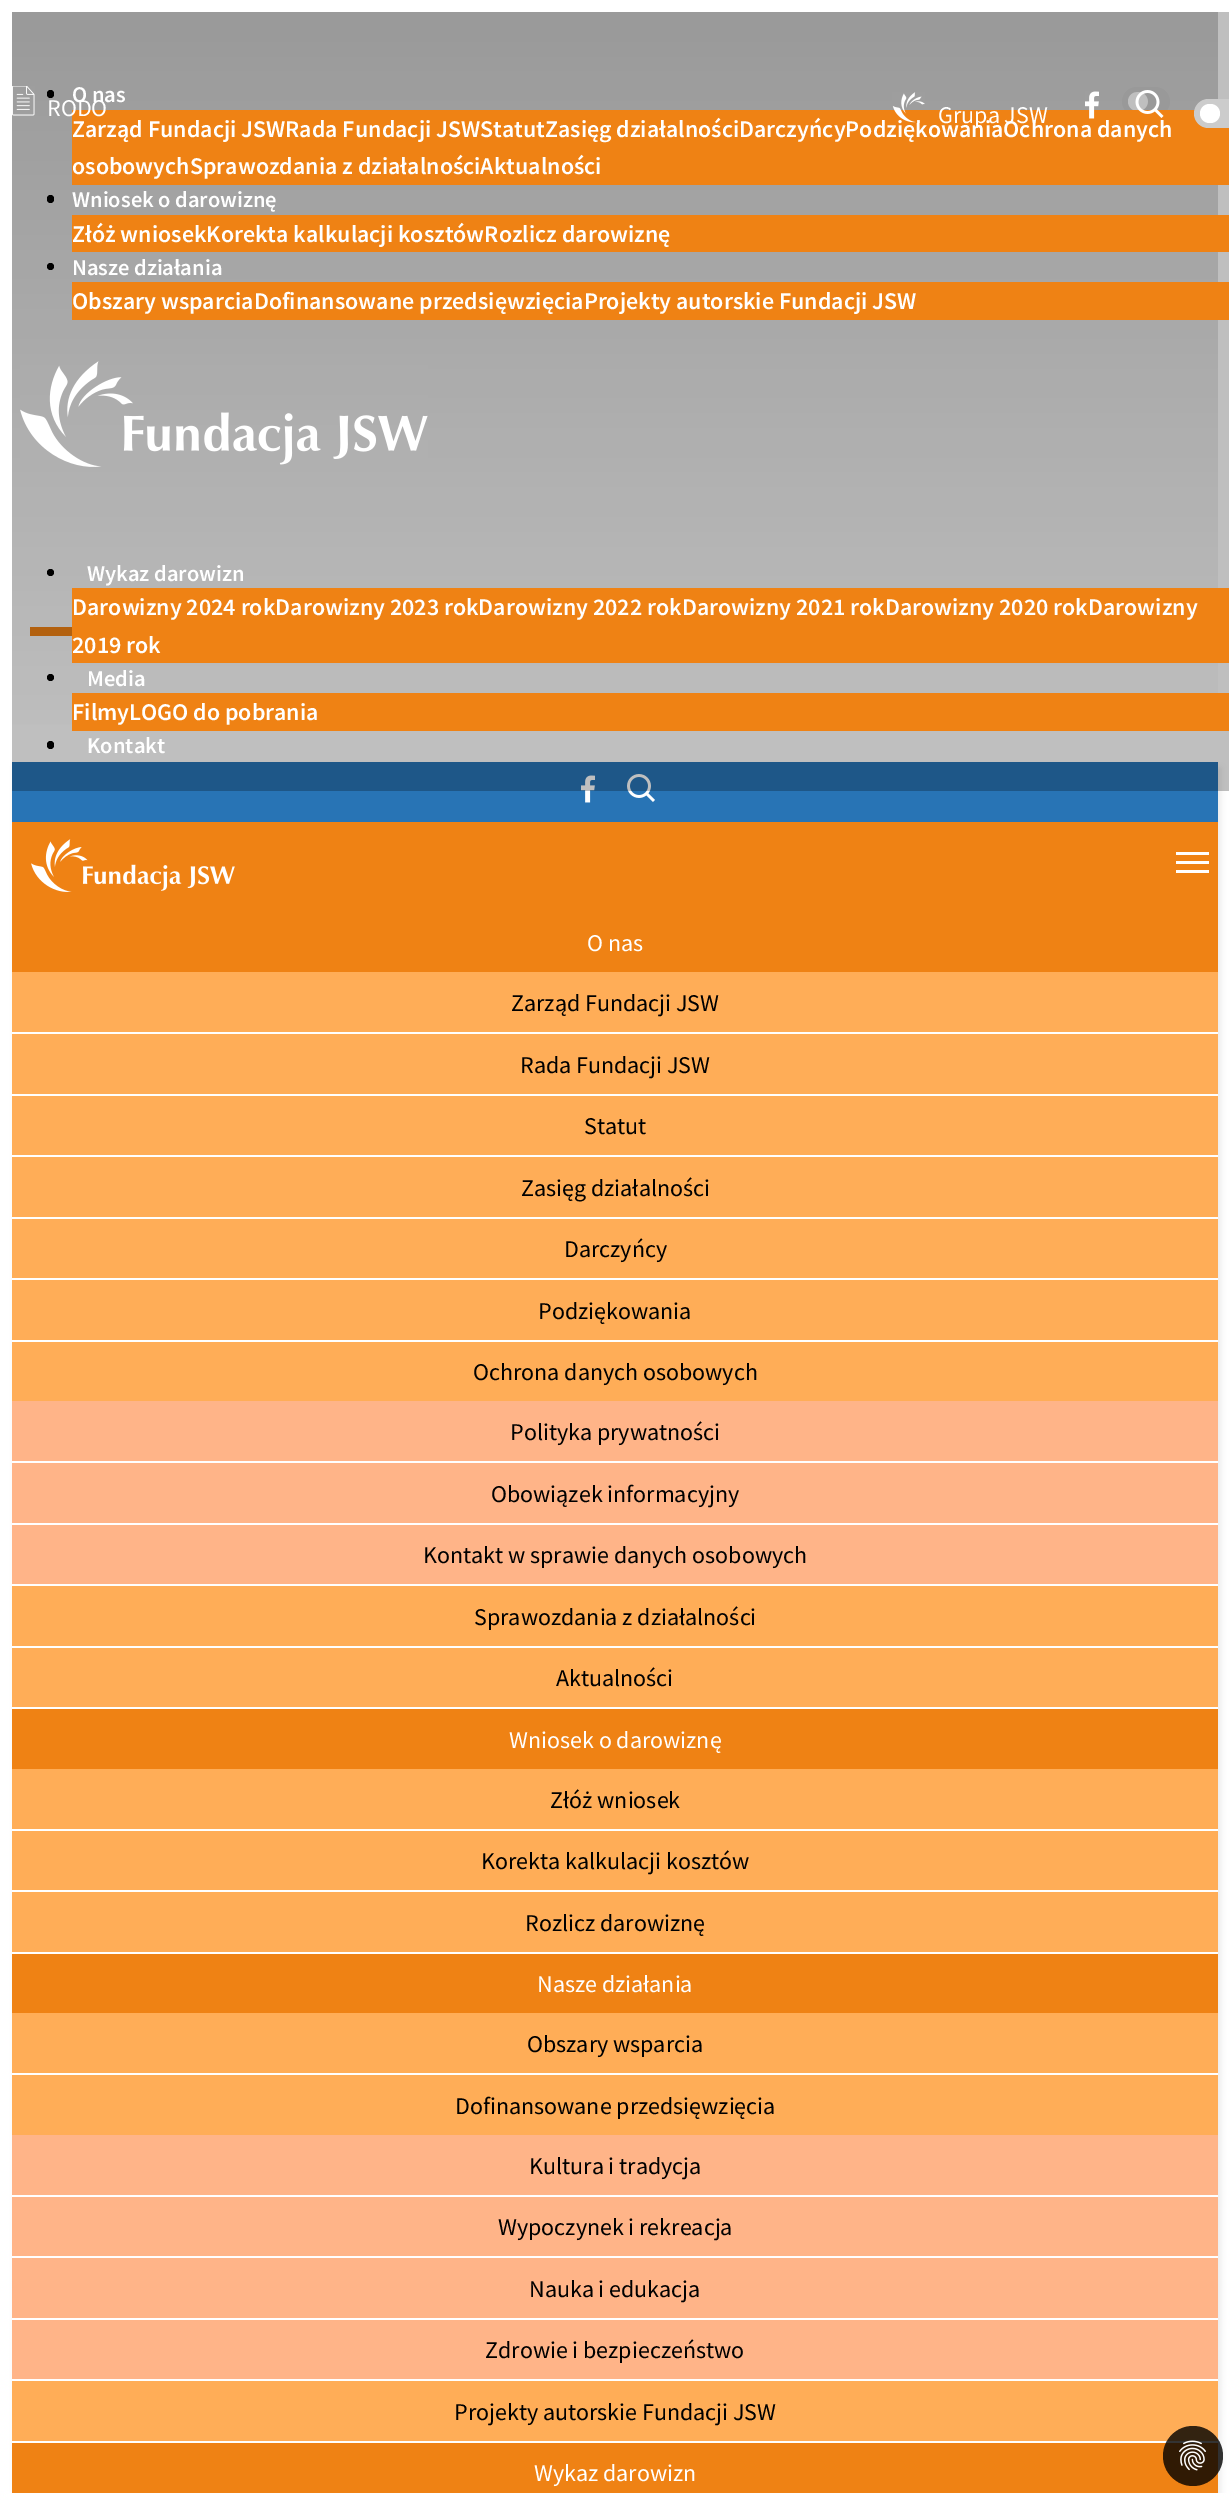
%!PS
<< /PageSize [1229 2493] /PageUsesTransparency true >> setpagedevice
/m/moveto load def
/l/rlineto load def
/z/closepath load def
/f/fill load def
/q/gsave load def
/Q_/grestore load def
/C { dup -16 bitshift 255 div exch dup -8 bitshift 255 and 255 div exch 255 and 255 div setrgbcolor } def
/F { [ exch dup neg 0 0 3 -1 roll 0 0 ] selectfont } def
/T { moveto show } def
/R { rectfill } def
/A { dup .setfillconstantalpha .setstrokeconstantalpha } def
/O { newpath 0 360 arc closepath } def
/Q { 5 dict begin { /r /h /w /y /x } { exch def } forall
  x r add y moveto x w add y 2 copy h add r arct x w add y h add x 1 index r arct
  x y h add x y r arct x y 2 copy exch w add exch r arct closepath end } def
/S { 12 dict begin { /a /b /q /h /w /y /x } { exch def } forall gsave /was 0 def
  9 -2 -9 { dup b mul 4 div /e exch def 1 sub .425 mul 2.718 exch exp 1 add a .99 .min exch div /now exch def
    1 1 now sub 1 was sub div sub A /was now def
    w h .min e 2 mul add 0 gt { x e sub y e sub w e 2 mul add h e 2 mul add
      q e add b .6 mul add w h .min 2 div e add .min 0 .max Q fill } if } for grestore end } def
/I { 5 dict begin { /h /w /y /x /name } { exch def } forall
  gsave x y translate w h scale
  w h 8 [w 0 0 h 0 0] name (r) file false 3 colorimage grestore end } def
0 .pushpdf14devicefilter
0 2493 translate 1 -1 scale
4 setmiterlimit
16#FFFFFF C
0 0 1229 2493 R
q 12 12 m 1206 0 l 0 713 l -1206 0 l z clip newpath
<< /ShadingType 2 /ColorSpace /DeviceRGB /Coords [615 12 615 762] /Extend [true true] /Function << /FunctionType 2 /Domain [0 1] /C0 [.804 .804 .804] /C1 [1 1 1] /N 1 >> >> shfill Q_
16#EF8214 C
30 627 42 9 R
16#B8B2B2 C
15 768 1206 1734 0 3 .25 S
16#CCCCCC C
1122 87 48 29 14.5 Q f
16#FFFFFF C
1128 92 20 19 9.5 Q f
16#2874B5 C
12 762 1206 60 R
(6.rgb) 581 775 14 28 I
(7.rgb) 627 774 28 28 I
0.25 A
16#000000 C
12 12 1217 779 R
1 A
47 90 7 8 3.5 Q f
/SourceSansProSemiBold-SemiBold 22.5 F
16#FFFFFF C
(O nas) 72 102 T
16#EF8214 C
72 110 1157 75 R
/SourceSansProSemiBold-SemiBold 24 F
16#FFFFFF C
(Zarząd Fundacji JSWRada Fundacji JSWStatutZasięg działalnościDarczyńcyPodziękowaniaOchrona danych) 72 137 T
(osobowychSprawozdania z działalnościAktualności) 72 174 T
16#000000 C
47 195 7 8 3.5 Q f
/SourceSansProSemiBold-SemiBold 22.5 F
16#FFFFFF C
(Wniosek o darowiznę) 72 207 T
16#EF8214 C
72 215 1157 37 R
/SourceSansProSemiBold-SemiBold 24 F
16#FFFFFF C
(Złóż wniosekKorekta kalkulacji kosztówRozlicz darowiznę) 72 242 T
16#000000 C
50.5 266.5 3.5 O f
/SourceSansProSemiBold-SemiBold 22.5 F
16#FFFFFF C
(Nasze działania) 72 275 T
16#EF8214 C
72 282 1157 38 R
/SourceSansProSemiBold-SemiBold 24 F
16#FFFFFF C
(Obszary wsparciaDofinansowane przedsięwzięciaProjekty autorskie Fundacji JSW) 72 309 T
(1.rgb) 20 361 408 106 I
16#000000 C
50.5 572.5 3.5 O f
/SourceSansProSemiBold-SemiBold 22.5 F
16#FFFFFF C
(Wykaz darowizn) 87 581 T
16#EF8214 C
72 588 1157 75 R
/SourceSansProSemiBold-SemiBold 24 F
16#FFFFFF C
(Darowizny 2024 rokDarowizny 2023 rokDarowizny 2022 rokDarowizny 2021 rokDarowizny 2020 rokDarowizny) 72 615 T
(2019 rok) 72 653 T
16#000000 C
50.5 677.5 3.5 O f
/SourceSansProSemiBold-SemiBold 22.5 F
16#FFFFFF C
(Media) 87 686 T
16#EF8214 C
72 693 1157 38 R
/SourceSansProSemiBold-SemiBold 24 F
16#FFFFFF C
(FilmyLOGO do pobrania) 72 720 T
16#000000 C
47 741 7 8 3.5 Q f
/SourceSansProSemiBold-SemiBold 22.5 F
16#FFFFFF C
(Kontakt) 87 753 T
(2.rgb) 12 86 23 30 I
/SourceSansPro-Regular 24 F
(RODO) 47 116 T
(3.rgb) 892 92 33 31 I
(Grupa JSW) 938 123 T
(4.rgb) 1085 91 14 28 I
(5.rgb) 1135 90 29 28 I
16#CCCCCC C
1194 99 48 29 14.5 Q f
16#FFFFFF C
1200 104 20 19 9.5 Q f
16#EF8214 C
12 822 1206 1671 R
(8.rgb) 31 839 204 53 I
16#FFFFFF C
1176 852 33 3 R
1176 861 33 3 R
1176 870 33 3 R
12 1707 1206 2 R
(O nas) 587 951 T
16#FFAD57 C
12 972 1206 735 R
16#FFFFFF C
12 1032 1206 2 R
16#000000 C
(Zarząd Fundacji JSW) 511 1011 T
16#FFFFFF C
12 1094 1206 2 R
16#000000 C
(Rada Fundacji JSW) 520 1073 T
16#FFFFFF C
12 1155 1206 2 R
16#000000 C
(Statut) 584 1134 T
16#FFFFFF C
12 1217 1206 2 R
16#000000 C
(Zasięg działalności) 521 1196 T
16#FFFFFF C
12 1278 1206 2 R
16#000000 C
(Darczyńcy) 564 1257 T
16#FFFFFF C
12 1340 1206 2 R
16#000000 C
(Podziękowania) 538 1319 T
16#FFFFFF C
12 1584 1206 2 R
16#000000 C
(Ochrona danych osobowych) 473 1380 T
16#FFB488 C
12 1401 1206 183 R
16#FFFFFF C
12 1461 1206 2 R
16#000000 C
(Polityka prywatności) 510 1440 T
16#FFFFFF C
12 1523 1206 2 R
16#000000 C
(Obowiązek informacyjny) 491 1502 T
(Kontakt w sprawie danych osobowych) 423 1563 T
16#FFFFFF C
12 1646 1206 2 R
16#000000 C
(Sprawozdania z działalności) 474 1625 T
(Aktualności) 556 1686 T
16#FFFFFF C
12 1952 1206 2 R
(Wniosek o darowiznę) 509 1748 T
16#FFAD57 C
12 1769 1206 183 R
16#FFFFFF C
12 1829 1206 2 R
16#000000 C
(Złóż wniosek) 550 1808 T
16#FFFFFF C
12 1890 1206 2 R
16#000000 C
(Korekta kalkulacji kosztów) 481 1869 T
(Rozlicz darowiznę) 525 1931 T
16#FFFFFF C
12 2441 1206 2 R
(Nasze działania) 537 1992 T
16#FFAD57 C
12 2013 1206 428 R
16#FFFFFF C
12 2073 1206 2 R
16#000000 C
(Obszary wsparcia) 527 2052 T
16#FFFFFF C
12 2379 1206 2 R
16#000000 C
(Dofinansowane przedsięwzięcia) 455 2114 T
16#FFB488 C
12 2135 1206 244 R
16#FFFFFF C
12 2195 1206 2 R
16#000000 C
(Kultura i tradycja) 529 2174 T
16#FFFFFF C
12 2256 1206 2 R
16#000000 C
(Wypoczynek i rekreacja) 498 2235 T
16#FFFFFF C
12 2318 1206 2 R
16#000000 C
(Nauka i edukacja) 529 2297 T
(Zdrowie i bezpieczeństwo) 485 2358 T
(Projekty autorskie Fundacji JSW) 454 2420 T
16#FFFFFF C
(Wykaz darowizn) 534 2481 T
0.8 A
16#000000 C
1193 2456 30 O f
1 A
(9.rgb) 1179 2440 27 31 I
.poppdf14devicefilter showpage
